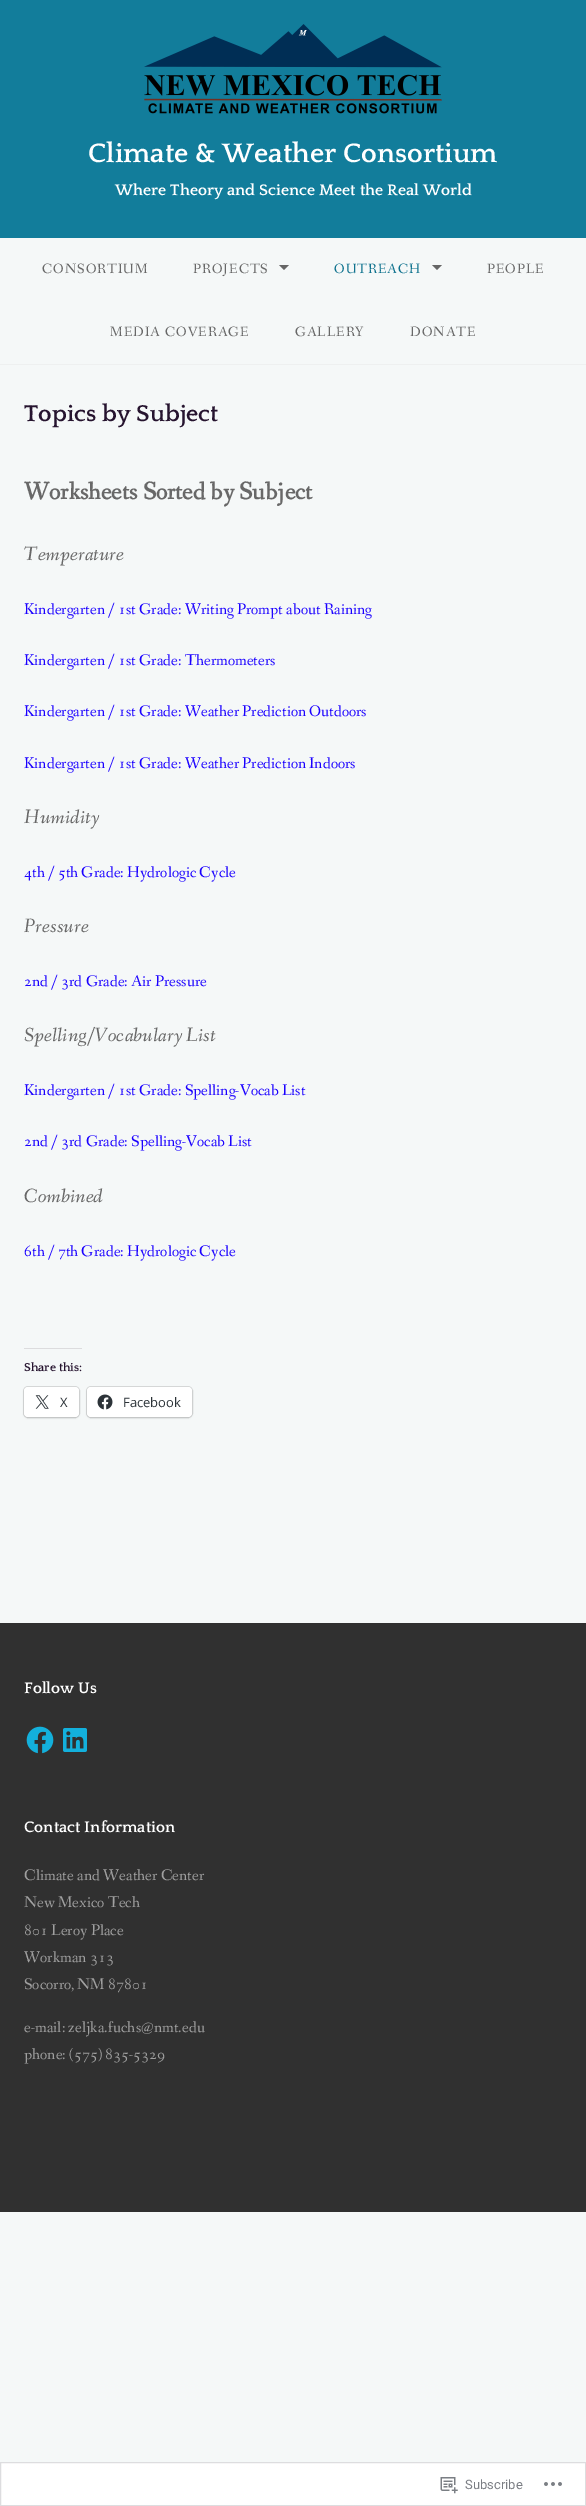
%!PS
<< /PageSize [586 2506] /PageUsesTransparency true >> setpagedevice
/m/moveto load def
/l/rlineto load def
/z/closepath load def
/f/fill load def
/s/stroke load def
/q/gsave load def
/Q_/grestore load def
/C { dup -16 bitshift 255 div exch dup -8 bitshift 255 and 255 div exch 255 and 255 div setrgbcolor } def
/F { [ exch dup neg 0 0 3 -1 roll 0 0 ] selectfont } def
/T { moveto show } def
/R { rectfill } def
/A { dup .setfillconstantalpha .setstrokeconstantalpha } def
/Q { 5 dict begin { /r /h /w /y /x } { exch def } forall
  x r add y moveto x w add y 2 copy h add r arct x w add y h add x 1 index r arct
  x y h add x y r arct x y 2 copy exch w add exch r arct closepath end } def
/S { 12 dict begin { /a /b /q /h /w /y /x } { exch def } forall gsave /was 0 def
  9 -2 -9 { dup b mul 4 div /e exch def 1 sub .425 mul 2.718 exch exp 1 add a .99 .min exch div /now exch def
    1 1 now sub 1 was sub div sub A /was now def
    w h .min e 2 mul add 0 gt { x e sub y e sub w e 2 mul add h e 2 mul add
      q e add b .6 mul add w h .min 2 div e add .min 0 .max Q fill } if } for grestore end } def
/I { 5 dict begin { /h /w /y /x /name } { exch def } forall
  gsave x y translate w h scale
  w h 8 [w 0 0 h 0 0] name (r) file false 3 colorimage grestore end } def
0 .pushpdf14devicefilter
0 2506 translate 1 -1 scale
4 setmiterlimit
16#F5F8F8 C
0 0 586 2506 R
16#127D9B C
0 0 586 238 R
(1.rgb) 144 24 298 90 I
/Quattrocento-Bold 28 F
16#FFFFFF C
(Climate & Weather Consortium) 88 162 T
/Quattrocento-Bold 16 F
(Where Theory and Science Meet the Real World) 115 195 T
16#EEF0F0 C
0 364 586 1 R
/FanwoodText-Regular 14 F
16#686868 C
42 273 m 1 0 (CONSORTIUM) ashow
193 273 m 1 0 (PROJECTS) ashow
16#666666 C
279 265 m 10 0 l -5 5 l z f
16#0F728E C
334 273 m 1 0 (OUTREACH) ashow
16#666666 C
432 265 m 10 0 l -5 5 l z f
16#686868 C
487 273 m 1 0 (PEOPLE) ashow
110 336 m 1 0 (MEDIA COVERAGE) ashow
295 336 m 1 0 (GALLERY) ashow
410 336 m 1 0 (DONATE) ashow
/Quattrocento-Bold 24 F
16#26142F C
(Topics by Subject) 24 421 T
/FanwoodText-Bold 25 F
16#686868 C
(Worksheets Sorted by Subject) 24 499 T
/FanwoodText-Italic 20 F
(Temperature) 24 560 T
/FanwoodText-Regular 16 F
16#1A00FF C
(Kindergarten / 1st Grade: Writing Prompt about Raining) 24 614 T
(Kindergarten / 1st Grade: Thermometers) 24 665 T
(Kindergarten / 1st Grade: Weather Prediction Outdoors) 24 716 T
(Kindergarten / 1st Grade: Weather Prediction Indoors) 24 768 T
/FanwoodText-Italic 20 F
16#686868 C
(Humidity) 24 823 T
/FanwoodText-Regular 16 F
16#1A00FF C
(4th / 5th Grade: Hydrologic Cycle) 24 877 T
/FanwoodText-Italic 20 F
16#686868 C
(Pressure) 24 932 T
/FanwoodText-Regular 16 F
16#1A00FF C
(2nd / 3rd Grade: Air Pressure) 24 986 T
/FanwoodText-Italic 20 F
16#686868 C
(Spelling/Vocabulary List) 24 1041 T
/FanwoodText-Regular 16 F
16#1A00FF C
(Kindergarten / 1st Grade: Spelling-Vocab List) 24 1095 T
(2nd / 3rd Grade: Spelling-Vocab List) 24 1146 T
/FanwoodText-Italic 20 F
16#686868 C
(Combined) 24 1202 T
/FanwoodText-Regular 16 F
16#1A00FF C
(6th / 7th Grade: Hydrologic Cycle) 24 1256 T
16#DCDCDE C
24 1348 58 1 R
/Quattrocento-Bold 12 F
16#26142F C
(Share this:) 24 1371 T
16#D8DADA C
23.5 1386.5 56 31 4.5 Q s
16#000000 C
24 1388 55 30 4 1 .12 S
16#FFFFFF C
24 1387 55 30 4 Q f
(2.rgb) 35 1395 14 14 I
/OpenSans-Regular 13 F
16#2C3338 C
(X) 60 1407 T
16#D8DADA C
86.5 1386.5 106 31 4.5 Q s
16#000000 C
87 1388 105 30 4 1 .12 S
16#FFFFFF C
87 1387 105 30 4 Q f
(3.rgb) 97 1394 16 16 I
16#2C3338 C
(Facebook) 123 1407 T
16#303030 C
0 1623 586 589 R
/Quattrocento-Bold 16 F
16#FFFFFF C
(Follow Us) 24 1693 T
(4.rgb) 26 1726 28 28 I
(5.rgb) 63 1728 24 24 I
(Contact Information) 24 1832 T
/FanwoodText-Regular 16 F
16#A0A0A0 C
(Climate and Weather Center) 24 1880 T
(New Mexico Tech) 24 1907 T
(801 Leroy Place) 24 1935 T
(Workman 313) 24 1962 T
(Socorro, NM 87801) 24 1989 T
(e-mail: zeljka.fuchs@nmt.edu) 24 2032 T
(phone: \(575\) 835-5329) 24 2059 T
16#FFFFFF C
.5 2462.5 m 585 0 l 0 43 l -585 0 l z q f Q_
16#DDDDDF C
s
(6.rgb) 440 2477 18 17 I
/Roboto-Regular 13 F
16#7B7E84 C
(Subscribe) 465 2489 T
(7.rgb) 544 2482 18 4 I
.poppdf14devicefilter showpage
